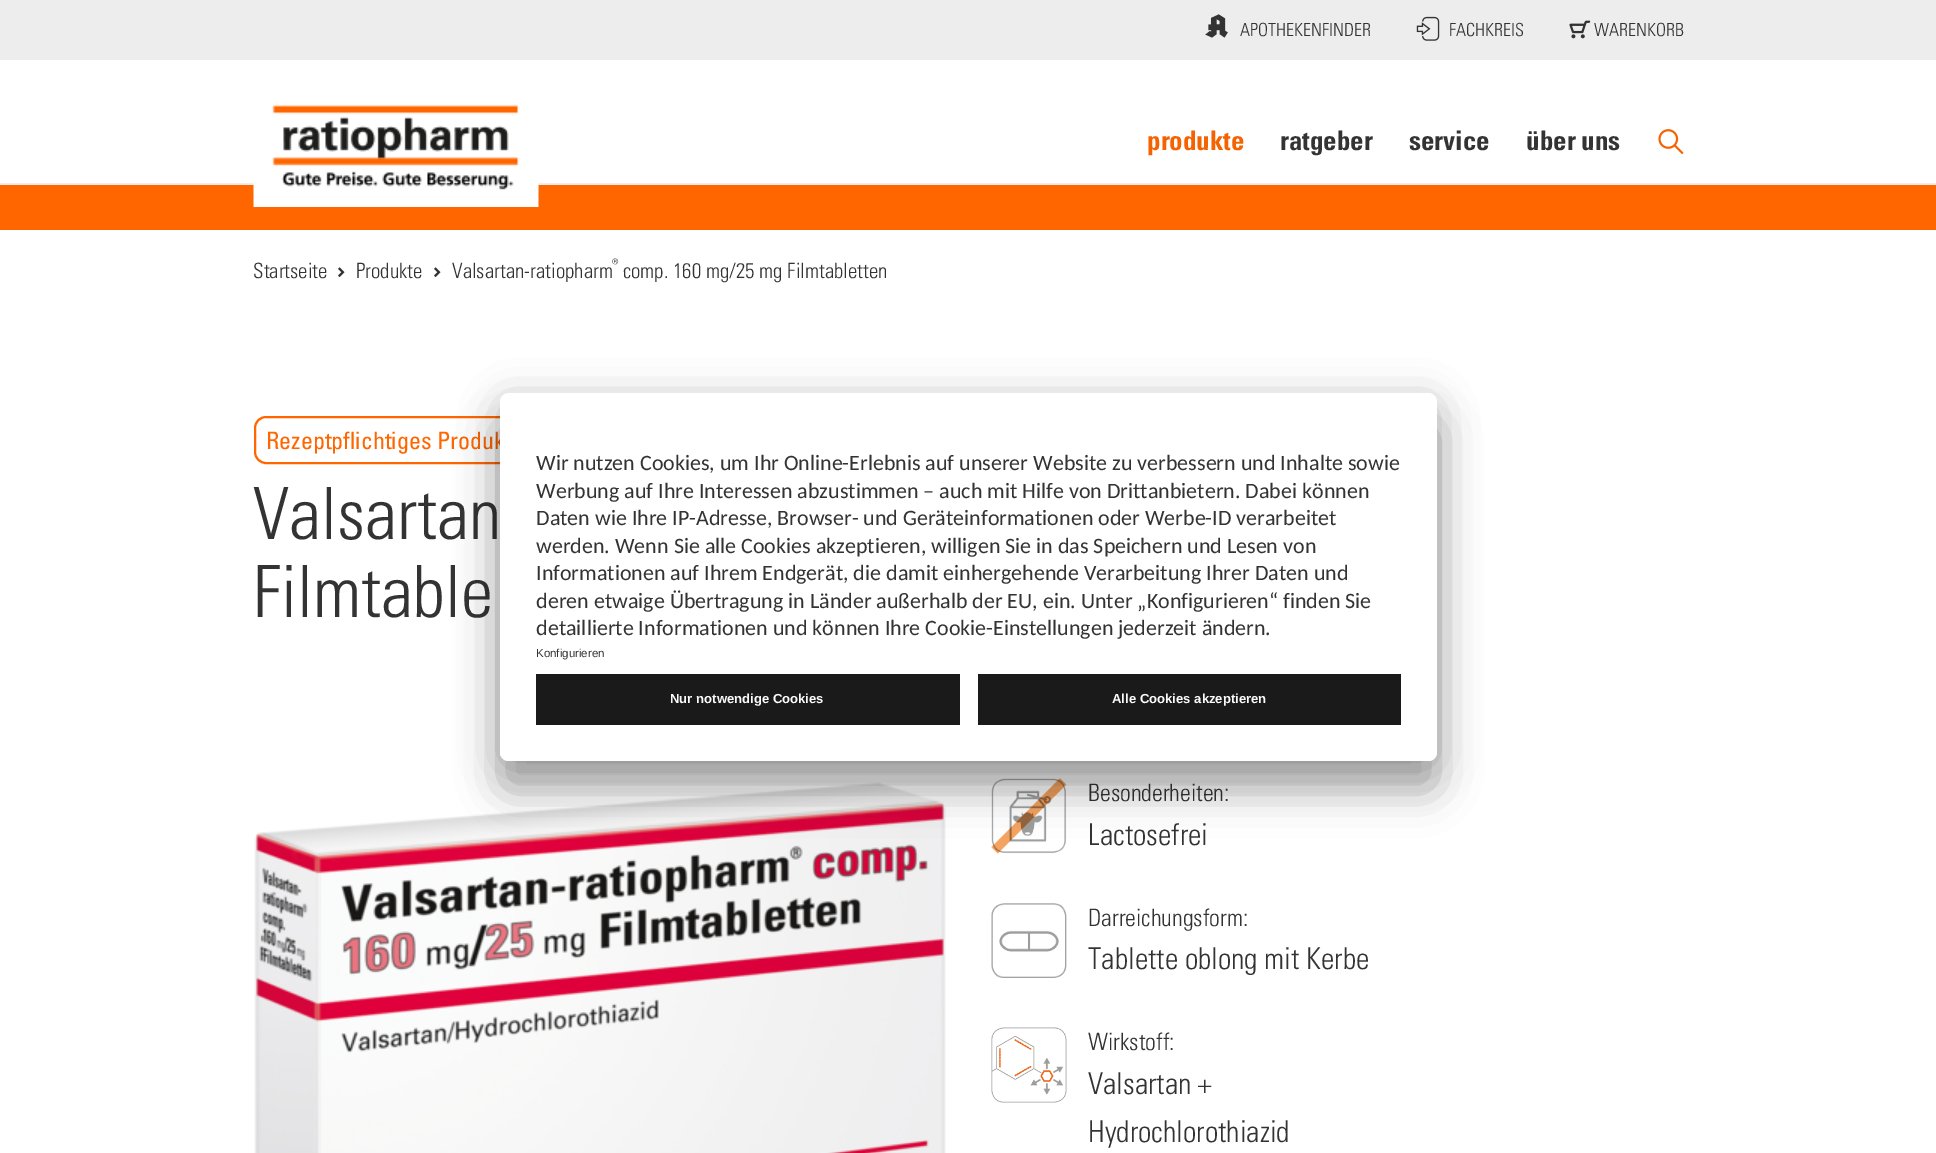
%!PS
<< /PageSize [1936 1153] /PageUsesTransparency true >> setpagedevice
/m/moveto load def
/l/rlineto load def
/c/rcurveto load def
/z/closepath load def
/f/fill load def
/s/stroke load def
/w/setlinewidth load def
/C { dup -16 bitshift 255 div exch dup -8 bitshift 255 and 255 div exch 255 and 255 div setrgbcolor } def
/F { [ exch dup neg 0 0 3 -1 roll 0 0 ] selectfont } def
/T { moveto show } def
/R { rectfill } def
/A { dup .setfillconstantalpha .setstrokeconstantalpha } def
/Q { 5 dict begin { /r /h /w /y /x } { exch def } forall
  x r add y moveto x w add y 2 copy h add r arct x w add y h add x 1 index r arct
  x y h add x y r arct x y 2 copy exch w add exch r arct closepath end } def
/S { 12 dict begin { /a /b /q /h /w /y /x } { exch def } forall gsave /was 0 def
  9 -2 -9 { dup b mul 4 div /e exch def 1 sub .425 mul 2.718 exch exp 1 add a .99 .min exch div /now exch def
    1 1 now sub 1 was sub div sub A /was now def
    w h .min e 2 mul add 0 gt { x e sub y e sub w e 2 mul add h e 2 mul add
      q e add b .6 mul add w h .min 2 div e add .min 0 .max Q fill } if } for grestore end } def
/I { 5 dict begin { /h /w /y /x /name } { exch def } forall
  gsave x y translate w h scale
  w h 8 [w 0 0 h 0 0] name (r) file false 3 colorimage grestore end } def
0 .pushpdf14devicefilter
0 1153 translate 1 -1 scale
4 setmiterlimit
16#FFFFFF C
0 0 1936 1153 R
16#EDEDED C
0 0 1936 60 R
(1.rgb) 1205 14 23 24 I
/Univers-Light 18 F
16#333333 C
(APOTHEKENFINDER) 1240 36 T
(2.rgb) 1416 16 24 25 I
(FACHKREIS) 1449 36 T
(3.rgb) 1569 20 22 19 I
(WARENKORB) 1594 36 T
16#EDEDED C
0 183 1936 2 R
16#FF6600 C
0 185 1936 45 R
(4.rgb) 253 104 286 103 I
/Univers-Bold 27 F
16#F56200 C
(produkte) 1147 150 T
16#333333 C
(ratgeber) 1280 150 T
(service) 1409 150 T
(über uns) 1526 150 T
(5.rgb) 1658 129 26 26 I
/Univers-Light 21 F
(Startseite) 253 278 T
(6.rgb) 338 267 7 11 I
(Produkte) 356 278 T
(6.rgb) 434 267 7 11 I
(Valsartan-ratiopharm) 452 278 T
/Univers-Light 16 F
(®) 612 270 T
/Univers-Light 21 F
(comp. 160 mg/25 mg Filmtabletten) 623 278 T
16#FF6600 C
2 w
255 417 271 46 11 Q s
/Univers-Regular 24 F
(Rezeptpflichtiges Produk) 266 449 T
/Univers-Light 72 F
16#333333 C
(Valsartan) 253 539 T
(Filmtable) 253 617 T
(7.rgb) 254 782 692 371 I
(8.rgb) 991 778 76 76 I
/Univers-Light 24 F
(Besonderheiten:) 1088 801 T
/Univers-Light 30 F
(Lactosefrei) 1088 845 T
(9.rgb) 991 903 76 75 I
/Univers-Light 24 F
(Darreichungsform:) 1088 926 T
/Univers-Light 30 F
(Tablette oblong mit Kerbe) 1088 969 T
(10.rgb) 991 1027 76 76 I
/Univers-Light 24 F
(Wirkstoff:) 1088 1050 T
/Univers-Light 30 F
(Valsartan +) 1088 1094 T
(Hydrochlorothiazid) 1088 1142 T
16#000000 C
500 423 937 368 9 21 .3 S
500 401 937 367 9 19.5 .22 S
16#FFFFFF C
500 393 937 368 9 Q f
/Carlito-Regular 22 F
16#333333 C
(Wir nutzen Cookies, um Ihr Online-Erlebnis auf unserer Website zu verbessern und Inhalte sowie) 536 470 T
(Werbung auf Ihre Interessen abzustimmen – auch mit Hilfe von Drittanbietern. Dabei können) 536 498 T
(Daten wie Ihre IP-Adresse, Browser- und Geräteinformationen oder Werbe-ID verarbeitet) 536 525 T
(werden. Wenn Sie alle Cookies akzeptieren, willigen Sie in das Speichern und Lesen von) 536 553 T
(Informationen auf Ihrem Endgerät, die damit einhergehende Verarbeitung Ihrer Daten und) 536 580 T
(deren etwaige Übertragung in Länder außerhalb der EU, ein. Unter „Konfigurieren“ finden Sie) 536 608 T
(detaillierte Informationen und können Ihre Cookie-Einstellungen jederzeit ändern.) 536 635 T
/LiberationSans-Regular 11.5 F
(Konfigurieren) 536 657 T
16#FFFFFF C
500 662 m 937 0 l 0 90 l 0 5 -4 9 -9 9 c -919 0 l -5 0 -9 -4 -9 -9 c z f
16#1A1A1A C
536 674 424 51 R
/LiberationSans-Bold 13.1 F
16#FAFAFA C
(Nur notwendige Cookies) 670 703 T
16#1A1A1A C
978 674 423 51 R
16#FAFAFA C
(Alle Cookies akzeptieren) 1112 703 T
.poppdf14devicefilter showpage
